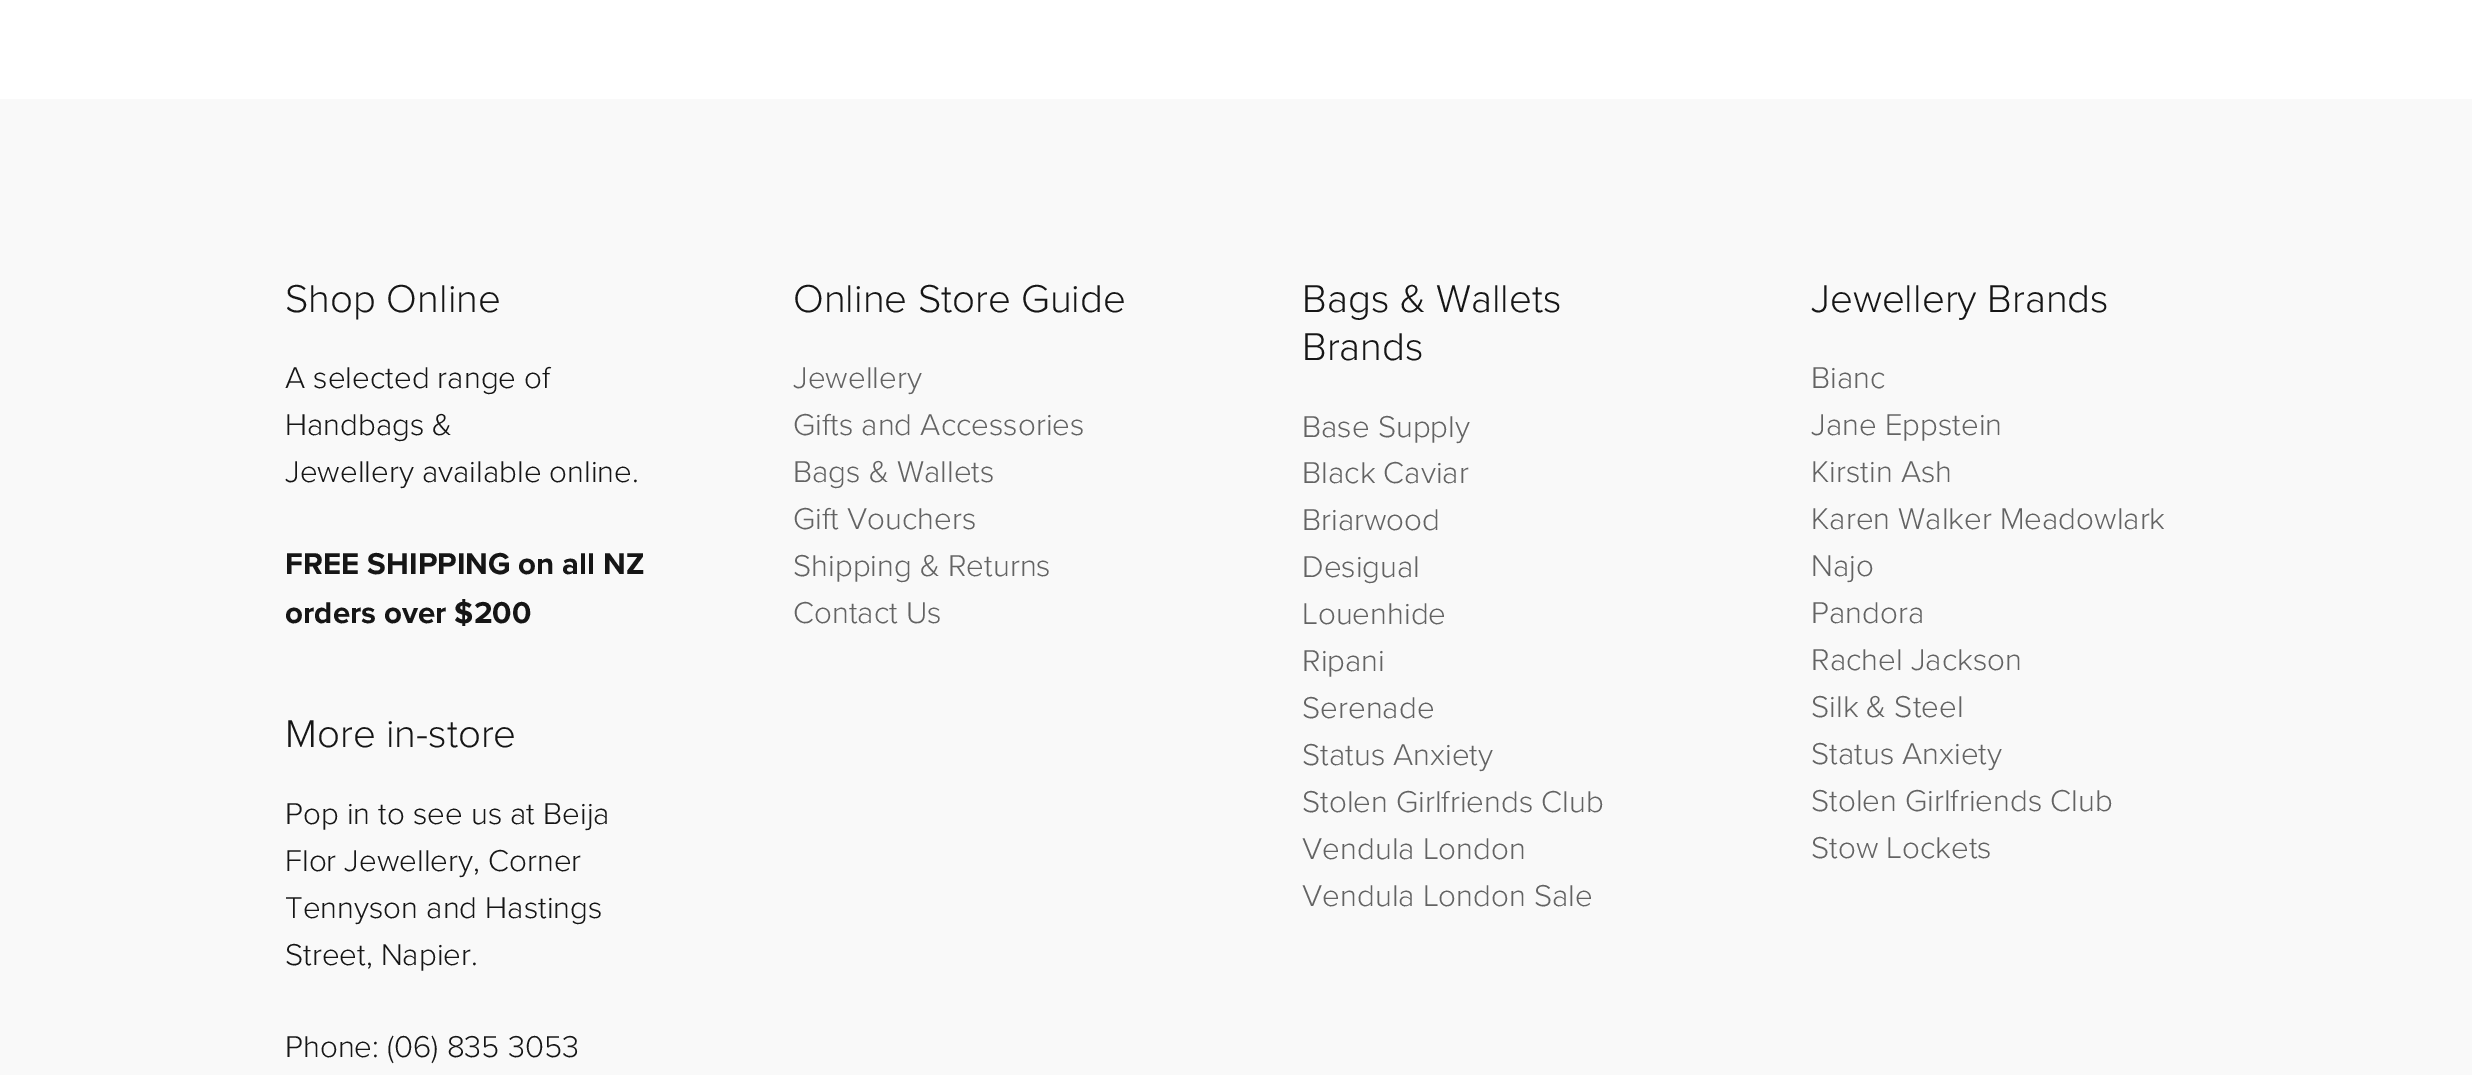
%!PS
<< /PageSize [2472 1075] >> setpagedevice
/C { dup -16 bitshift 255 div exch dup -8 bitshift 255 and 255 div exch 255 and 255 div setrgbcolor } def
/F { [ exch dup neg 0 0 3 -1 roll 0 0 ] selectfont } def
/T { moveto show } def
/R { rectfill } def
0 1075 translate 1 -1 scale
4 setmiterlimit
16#FFFFFF C
0 0 2472 1075 R
16#F9F9F9 C
0 99 2472 976 R
/ProximaNova-Light 40.25 F
16#161616 C
(Shop Online) 285 312 T
/ProximaNova-Light 31.25 F
(A selected range of) 285 388 T
(Handbags &) 285 435 T
(Jewellery available online.) 285 482 T
/ProximaNova-Bold 31.25 F
(FREE SHIPPING on all NZ) 285 574 T
(orders over $200) 285 623 T
/ProximaNova-Light 40.25 F
(More in-store) 285 747 T
/ProximaNova-Light 31.25 F
(Pop in to see us at Beija) 285 824 T
(Flor Jewellery, Corner) 285 871 T
(Tennyson and Hastings) 285 918 T
(Street, Napier.) 285 965 T
(Phone: \(06\) 835 3053) 285 1057 T
/ProximaNova-Light 40.25 F
(Online Store Guide) 793 312 T
/ProximaNova-Light 31.25 F
16#636363 C
(Jewellery) 793 388 T
(Gifts and Accessories) 793 435 T
(Bags & Wallets) 793 482 T
(Gift Vouchers) 793 529 T
(Shipping & Returns) 793 576 T
(Contact Us) 793 623 T
/ProximaNova-Light 40.25 F
16#161616 C
(Bags & Wallets) 1302 312 T
(Brands) 1302 360 T
/ProximaNova-Light 31.25 F
16#636363 C
(Base Supply) 1302 437 T
(Black Caviar) 1302 483 T
(Briarwood) 1302 530 T
(Desigual) 1302 577 T
(Louenhide) 1302 624 T
(Ripani) 1302 671 T
(Serenade) 1302 718 T
(Status Anxiety) 1302 765 T
(Stolen Girlfriends Club) 1302 812 T
(Vendula London) 1302 859 T
(Vendula London Sale) 1302 906 T
/ProximaNova-Light 40.25 F
16#161616 C
(Jewellery Brands) 1811 312 T
/ProximaNova-Light 31.25 F
16#636363 C
(Bianc) 1811 388 T
(Jane Eppstein) 1811 435 T
(Kirstin Ash) 1811 482 T
(Karen Walker Meadowlark) 1811 529 T
(Najo) 1811 576 T
(Pandora) 1811 623 T
(Rachel Jackson) 1811 670 T
(Silk & Steel) 1811 717 T
(Status Anxiety) 1811 764 T
(Stolen Girlfriends Club) 1811 811 T
(Stow Lockets) 1811 858 T
showpage
